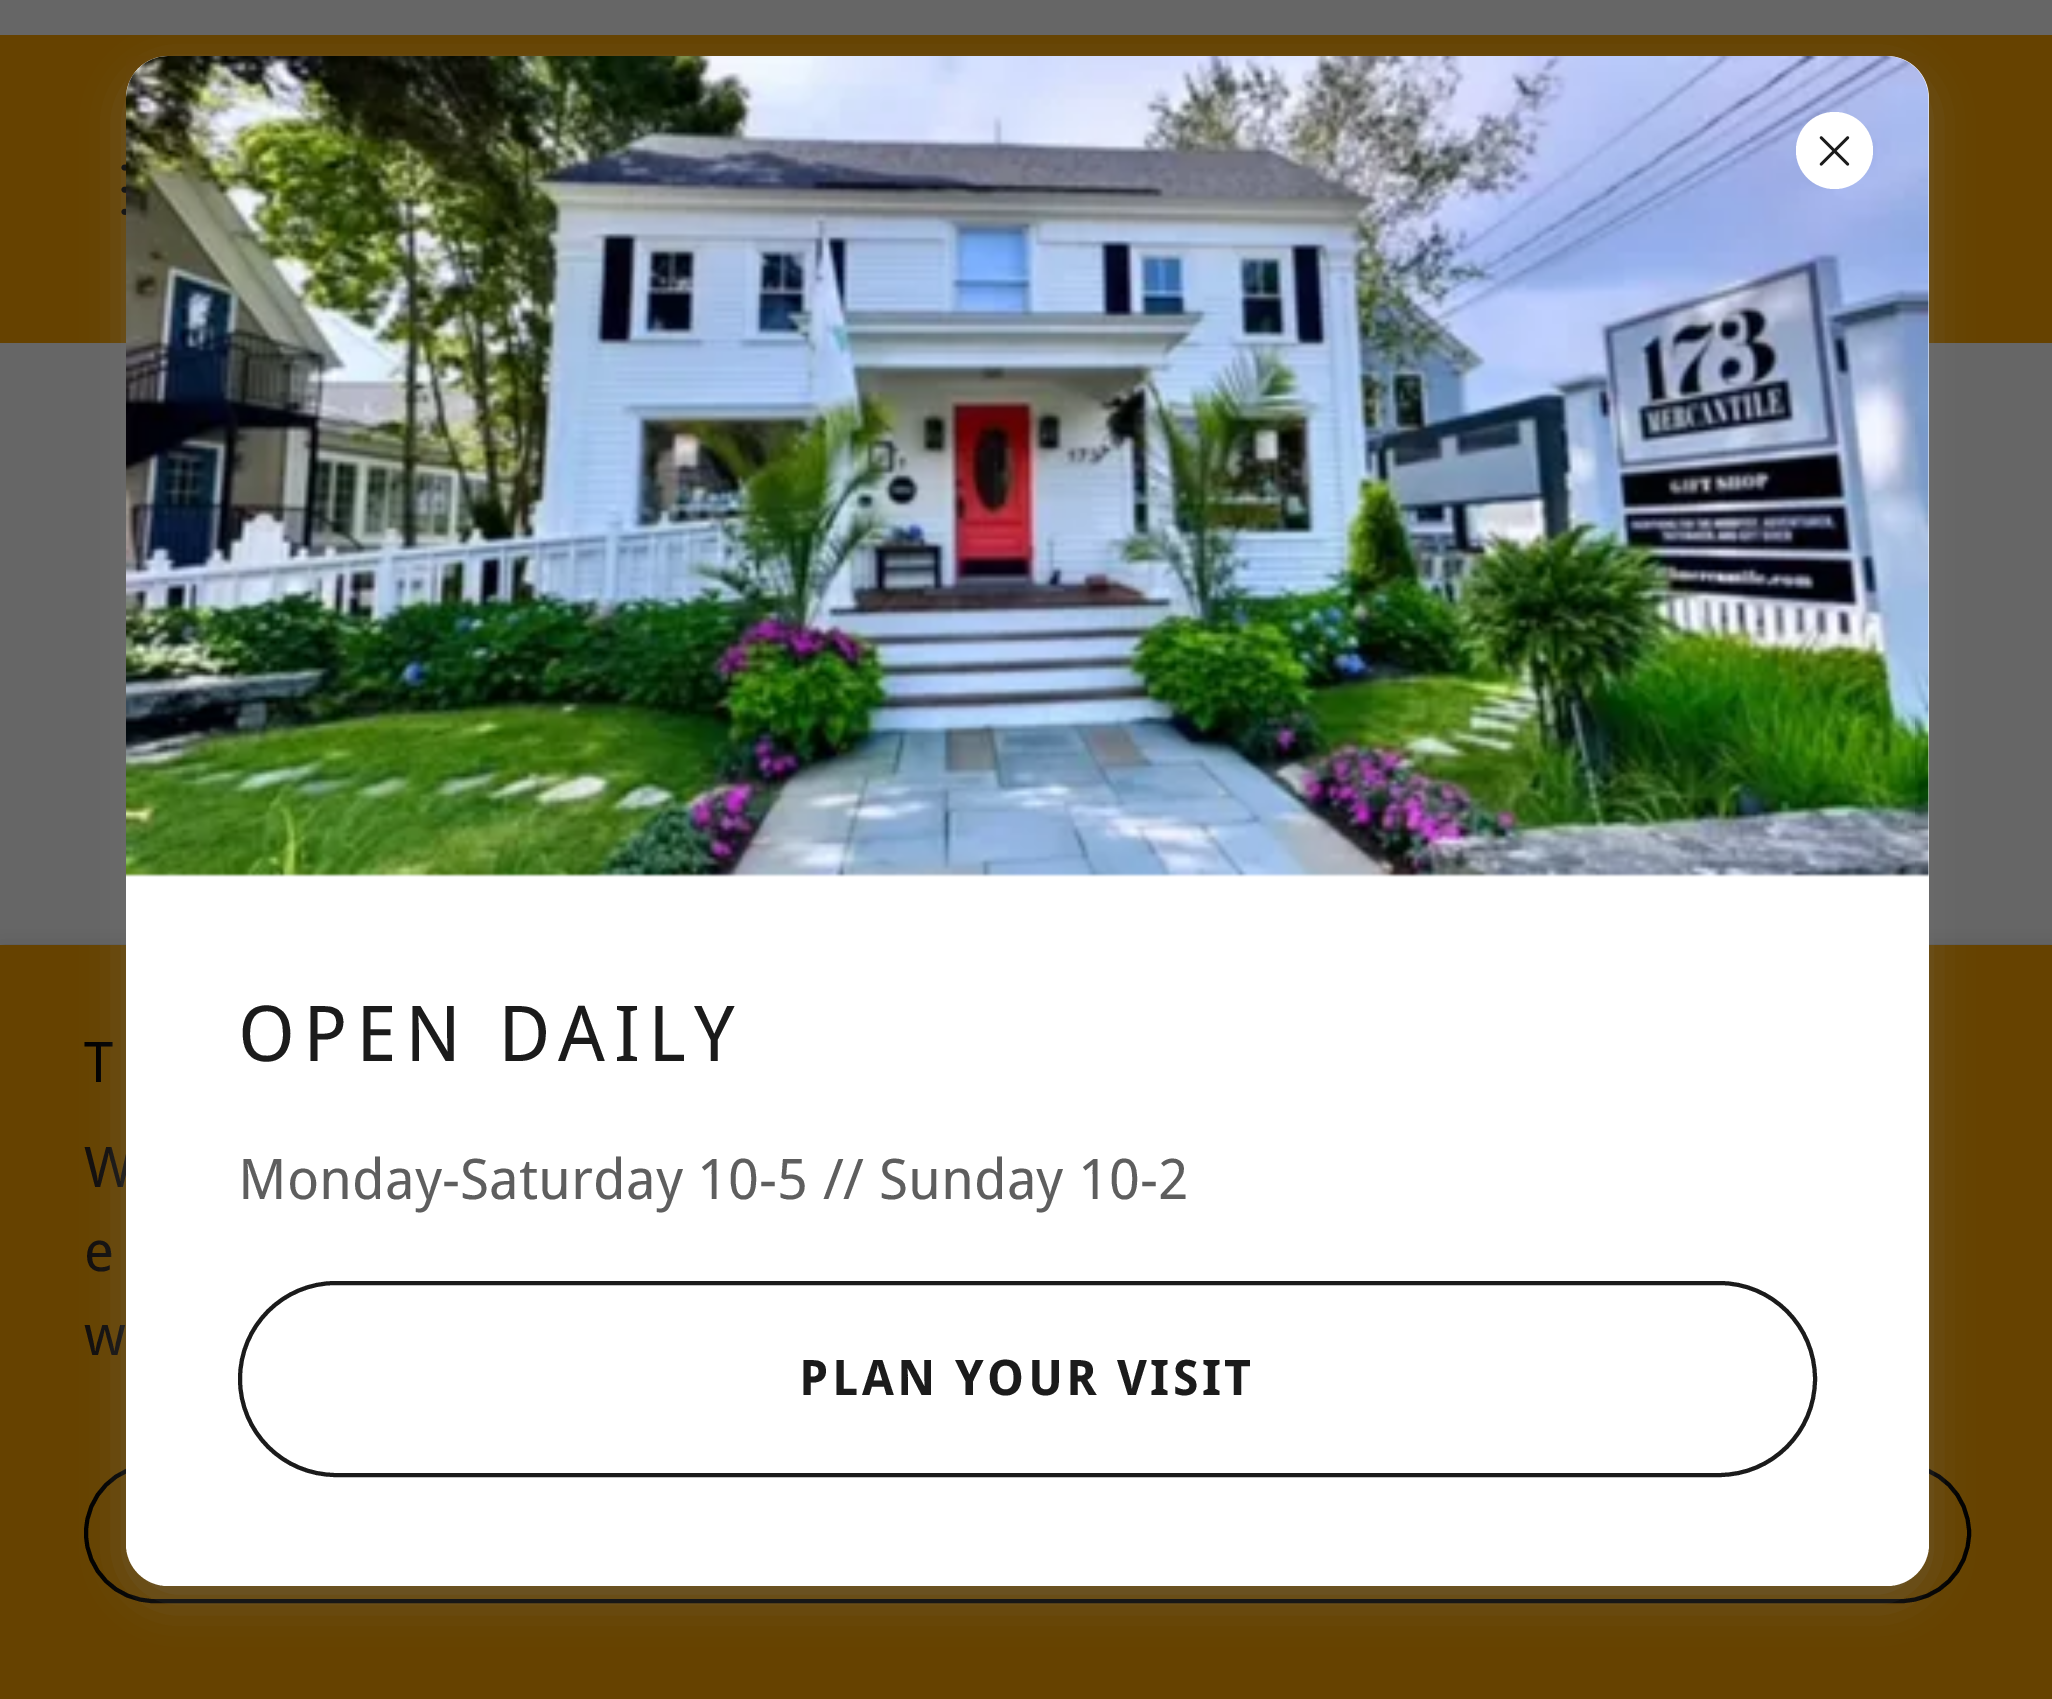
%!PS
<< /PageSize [2052 1699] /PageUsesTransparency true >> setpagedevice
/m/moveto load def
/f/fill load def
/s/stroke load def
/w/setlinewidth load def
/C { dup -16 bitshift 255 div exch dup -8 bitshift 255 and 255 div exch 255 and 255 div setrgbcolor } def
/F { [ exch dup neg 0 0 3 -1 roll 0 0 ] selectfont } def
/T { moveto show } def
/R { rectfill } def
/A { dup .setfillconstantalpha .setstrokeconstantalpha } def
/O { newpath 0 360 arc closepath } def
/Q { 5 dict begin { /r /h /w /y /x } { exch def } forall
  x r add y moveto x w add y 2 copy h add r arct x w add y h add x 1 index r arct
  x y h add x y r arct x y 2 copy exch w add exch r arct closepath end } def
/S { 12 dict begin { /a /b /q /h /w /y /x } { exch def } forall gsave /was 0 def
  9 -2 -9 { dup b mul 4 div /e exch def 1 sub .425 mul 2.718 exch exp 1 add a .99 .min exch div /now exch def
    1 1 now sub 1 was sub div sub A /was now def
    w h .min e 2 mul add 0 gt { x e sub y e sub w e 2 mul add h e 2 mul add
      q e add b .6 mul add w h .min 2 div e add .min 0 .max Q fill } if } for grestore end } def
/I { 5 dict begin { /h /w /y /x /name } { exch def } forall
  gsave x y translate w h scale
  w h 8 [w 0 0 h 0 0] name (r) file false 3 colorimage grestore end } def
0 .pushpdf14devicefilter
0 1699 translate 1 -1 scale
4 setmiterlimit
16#666666 C
0 0 2052 1699 R
16#664200 C
0 35 2052 308 R
(1.rgb) 121 164 5 51 I
16#000000 C
0 952 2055 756 0 10.5 .3 S
16#664200 C
0 945 2052 754 R
/DroidSans-Regular 56 F
16#000000 C
84 1082 m 6 0 (T) ashow
16#110E0D C
(W) 84 1187 T
(e) 84 1271 T
(w) 84 1355 T
16#000000 C
4 w
86 1465 1883 136 68 Q s
16#757575 C
126 70 1803 1530 42 21 .4 S
16#FFFFFF C
126 56 1803 1530 42 Q f
(3.rgb) 126 56 1803 821 I
1834.5 150.5 38.5 O f
(2.rgb) 1819 136 31 30 I
/DroidSans-Regular 77 F
16#1B1B1B C
238 1061 m 8.25 0 (OPEN DAILY) ashow
/DroidSans-Regular 56 F
16#5E5E5E C
(Monday-Saturday 10-5 // Sunday 10-2) 238 1199 T
16#1B1B1B C
240 1283 1575 192 96 Q s
/DroidSans-Bold 49 F
799 1395 m 3.5 0 (PLAN YOUR VISIT) ashow
.poppdf14devicefilter showpage
